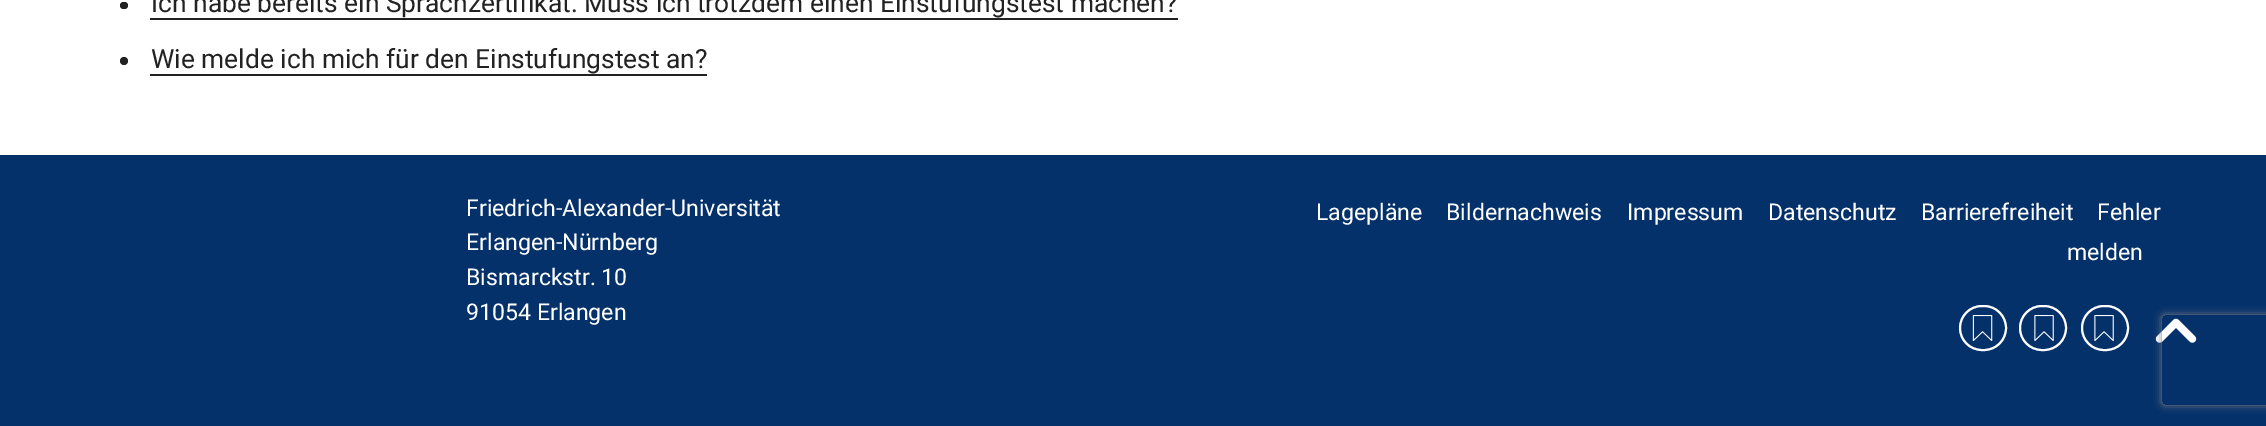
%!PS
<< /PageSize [2266 426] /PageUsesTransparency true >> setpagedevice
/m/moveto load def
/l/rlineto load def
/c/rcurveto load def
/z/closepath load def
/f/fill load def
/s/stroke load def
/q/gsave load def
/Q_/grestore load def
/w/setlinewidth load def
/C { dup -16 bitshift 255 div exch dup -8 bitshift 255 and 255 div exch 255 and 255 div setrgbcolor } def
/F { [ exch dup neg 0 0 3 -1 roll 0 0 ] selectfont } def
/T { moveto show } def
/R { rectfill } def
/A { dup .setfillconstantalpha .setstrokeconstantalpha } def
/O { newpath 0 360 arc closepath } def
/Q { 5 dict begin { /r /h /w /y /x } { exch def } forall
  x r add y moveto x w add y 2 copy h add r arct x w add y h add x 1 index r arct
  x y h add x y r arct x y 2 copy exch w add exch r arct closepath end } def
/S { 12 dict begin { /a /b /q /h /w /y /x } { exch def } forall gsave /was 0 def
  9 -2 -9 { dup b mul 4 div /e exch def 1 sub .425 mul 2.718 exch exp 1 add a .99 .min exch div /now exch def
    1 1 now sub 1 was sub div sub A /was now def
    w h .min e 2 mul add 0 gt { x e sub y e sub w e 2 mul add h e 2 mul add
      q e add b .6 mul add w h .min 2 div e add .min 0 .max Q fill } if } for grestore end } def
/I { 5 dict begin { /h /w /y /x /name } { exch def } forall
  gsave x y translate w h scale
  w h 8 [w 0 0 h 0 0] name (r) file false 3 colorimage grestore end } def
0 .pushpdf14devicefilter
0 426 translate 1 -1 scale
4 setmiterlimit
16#FFFFFF C
0 0 2266 426 R
16#222222 C
120 2 8 7 3.5 Q f
/Roboto-Regular 26.4 F
(Ich habe bereits ein Sprachzertifikat. Muss ich trotzdem einen Einstufungstest machen?) 151 12 T
150 18 1028 2 R
124 61 4 O f
(Wie melde ich mich für den Einstufungstest an?) 151 68 T
150 74 557 2 R
16#04316A C
0 155 2266 271 R
/Roboto-Regular 23.1 F
16#FFFFFF C
(Friedrich-Alexander-Universität) 466 216 T
(Erlangen-Nürnberg) 466 250 T
(Bismarckstr. 10) 466 285 T
(91054 Erlangen) 466 320 T
(Lagepläne) 1316 220 T
(Bildernachweis) 1446 220 T
(Impressum) 1627 220 T
(Datenschutz) 1768 220 T
(Barrierefreiheit) 1921 220 T
(Fehler) 2097 220 T
(melden) 2067 260 T
2 w
1960 306 46 44 22 Q s
(1.rgb) 1972 315 21 26 I
2020 306 46 44 22 Q s
(2.rgb) 2034 315 20 26 I
2082 306 46 44 22 Q s
(2.rgb) 2094 315 20 26 I
(3.rgb) 2155 318 42 25 I
q
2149 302 m 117 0 l 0 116 l -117 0 l z 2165 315 m 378 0 l 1.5 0 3 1.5 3 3 c 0 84 l 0 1.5 -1.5 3 -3 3 c -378 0 l -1.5 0 -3 -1.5 -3 -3 c 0 -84 l 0 -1.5 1.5 -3 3 -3 c z eoclip newpath
16#808080 C
2162 315 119 90 3 4 1 S
Q_
.poppdf14devicefilter showpage
